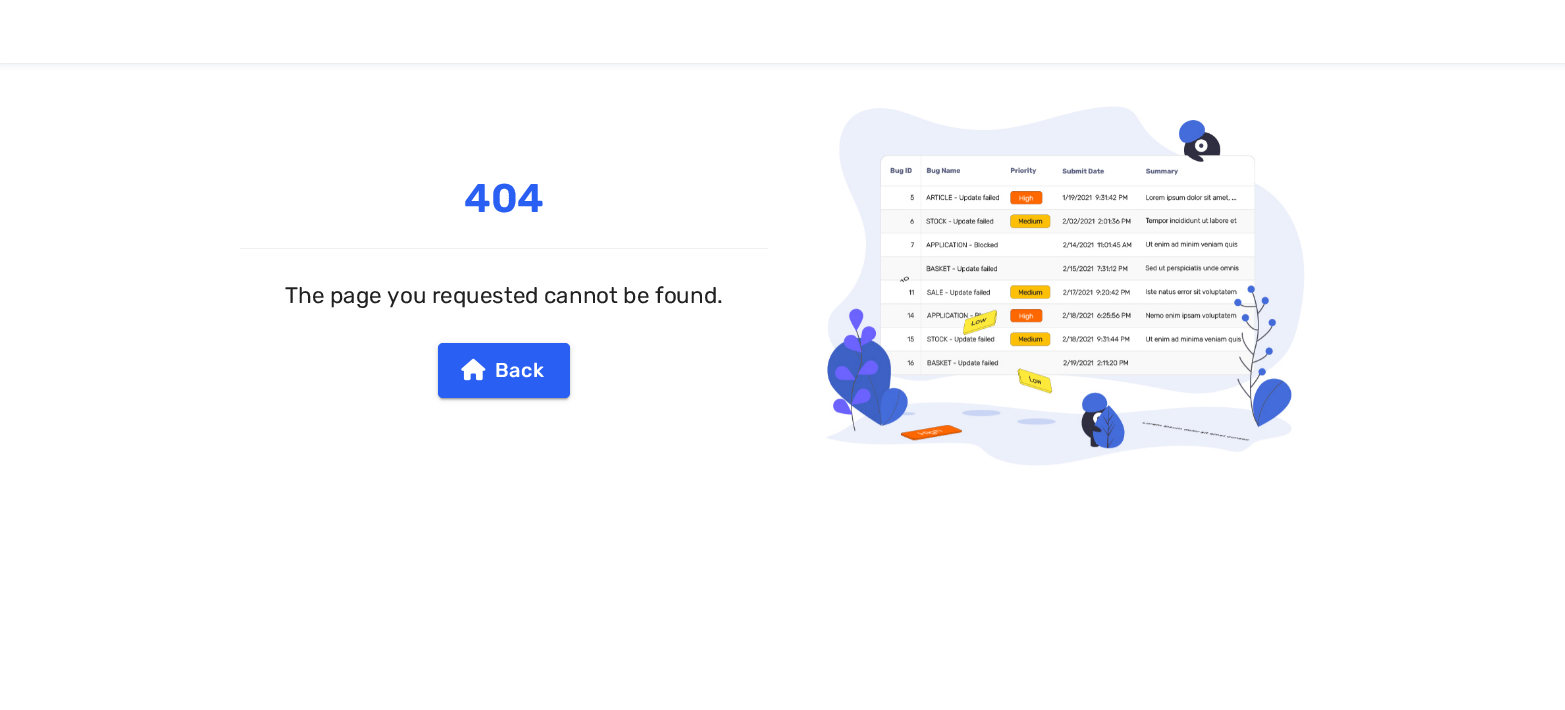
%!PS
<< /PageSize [1565 710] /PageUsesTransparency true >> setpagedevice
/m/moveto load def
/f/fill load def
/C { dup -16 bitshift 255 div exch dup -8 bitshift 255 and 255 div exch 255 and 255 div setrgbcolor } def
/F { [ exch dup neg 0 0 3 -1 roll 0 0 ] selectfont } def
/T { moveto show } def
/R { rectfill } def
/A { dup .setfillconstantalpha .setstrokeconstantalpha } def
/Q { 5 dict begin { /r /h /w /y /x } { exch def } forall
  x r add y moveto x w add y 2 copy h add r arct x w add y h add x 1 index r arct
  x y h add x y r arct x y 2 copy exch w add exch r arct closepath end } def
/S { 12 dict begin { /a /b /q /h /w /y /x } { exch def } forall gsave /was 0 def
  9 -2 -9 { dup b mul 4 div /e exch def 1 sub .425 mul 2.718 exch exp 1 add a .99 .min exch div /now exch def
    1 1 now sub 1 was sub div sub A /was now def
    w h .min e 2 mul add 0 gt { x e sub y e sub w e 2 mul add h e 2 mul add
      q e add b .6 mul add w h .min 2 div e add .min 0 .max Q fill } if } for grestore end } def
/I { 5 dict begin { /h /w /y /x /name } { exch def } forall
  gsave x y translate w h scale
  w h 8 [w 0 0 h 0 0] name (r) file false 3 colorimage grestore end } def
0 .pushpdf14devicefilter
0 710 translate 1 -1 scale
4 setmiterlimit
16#FFFFFF C
0 0 1565 710 R
16#262C47 C
0 0 1565 63 0 4 .16 S
16#FFFFFF C
0 0 1565 63 R
/Rubik-SemiBold 40 F
16#295FF2 C
(404) 464 212 T
16#F0F0F0 C
240 248 528 1 R
/Rubik-Regular 22.5 F
16#212121 C
(The page you requested cannot be found.) 285 303 T
16#000000 C
438 344 132 55 5 3 .12 S
438 345 132 55 5 1 .14 S
440 349 128 50 2.5 .5 .2 S
16#295FF2 C
438 343 132 55 5 Q f
(1.rgb) 461 358 25 23 I
/Rubik-Medium 20 F
16#FFFFFF C
495 377 m .5 0 (Back) ashow
(2.rgb) 826 106 479 360 I
.poppdf14devicefilter showpage
